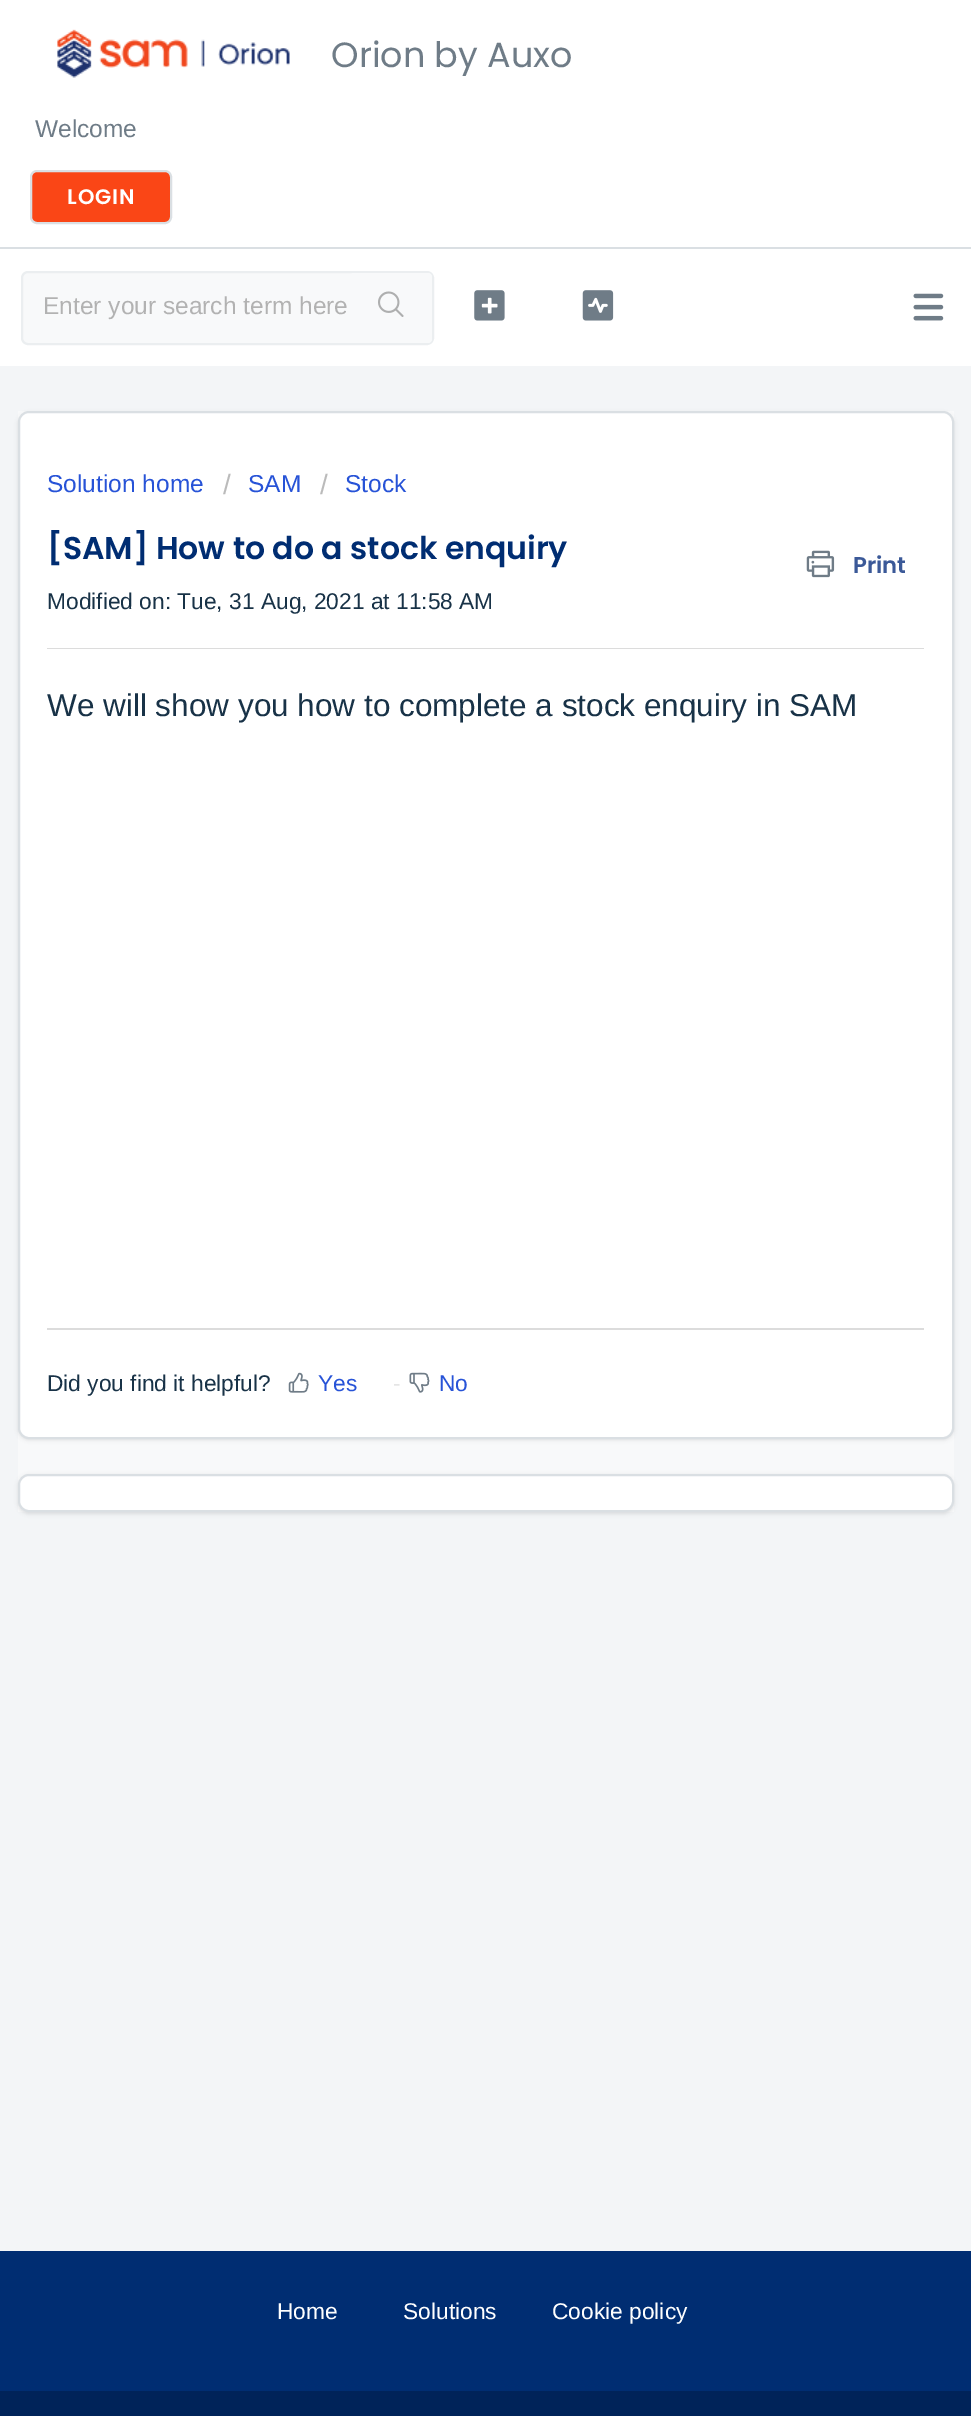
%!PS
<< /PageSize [971 2416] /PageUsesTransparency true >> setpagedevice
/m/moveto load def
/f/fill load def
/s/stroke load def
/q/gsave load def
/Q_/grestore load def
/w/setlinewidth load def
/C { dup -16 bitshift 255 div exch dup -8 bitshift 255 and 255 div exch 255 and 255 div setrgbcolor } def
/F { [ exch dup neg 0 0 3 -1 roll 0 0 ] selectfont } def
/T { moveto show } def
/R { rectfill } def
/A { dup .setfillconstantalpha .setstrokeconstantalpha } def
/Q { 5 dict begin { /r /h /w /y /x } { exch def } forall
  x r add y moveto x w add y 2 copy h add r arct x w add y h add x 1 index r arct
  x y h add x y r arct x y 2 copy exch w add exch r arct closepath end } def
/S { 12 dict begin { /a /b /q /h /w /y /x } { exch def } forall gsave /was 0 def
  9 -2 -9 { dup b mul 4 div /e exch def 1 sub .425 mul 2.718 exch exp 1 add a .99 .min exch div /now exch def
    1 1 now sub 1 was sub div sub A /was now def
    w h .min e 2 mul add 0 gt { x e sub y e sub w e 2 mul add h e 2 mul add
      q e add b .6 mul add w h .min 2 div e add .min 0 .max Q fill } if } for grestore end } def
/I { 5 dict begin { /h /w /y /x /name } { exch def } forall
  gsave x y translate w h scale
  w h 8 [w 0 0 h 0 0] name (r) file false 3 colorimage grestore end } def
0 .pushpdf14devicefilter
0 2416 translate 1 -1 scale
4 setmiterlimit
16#F3F5F7 C
0 0 971 2416 R
16#FFFFFF C
0 0 971 247 R
16#DADFE3 C
0 247 971 2 R
(1.rgb) 57 29 233 49 I
/Poppins-Regular 35 F
16#6F7C87 C
(Orion by Auxo) 331 67 T
/LiberationSans-Regular 24.5 F
(Welcome) 35 137 T
16#FA4616 C
31 171 140 52 6 Q q f Q_
16#DADFE3 C
2 w
s
/Poppins-SemiBold 21 F
16#FFFFFF C
67 204 m 1 0 (LOGIN) ashow
0 249 971 117 R
(2.rgb) 913 293 31 28 I
16#F8F9FA C
22 272 411 72 6 Q q f Q_
16#EBEEF0 C
s
/LiberationSans-Regular 24.5 F
16#B2B2B2 C
(Enter your search term here) 43 314 T
16#F8F9FA C
350 273 82 70 4 Q f
(3.rgb) 378 291 26 26 I
(4.rgb) 474 290 31 31 I
(5.rgb) 582 290 32 31 I
18 411 936 1101 R
16#3F3F44 C
18 413 936 1027 11 2 .15 S
16#FFFFFF C
19 412 934 1026 10 Q q f Q_
16#DADFE3 C
s
16#2753D7 C
(Solution home) 47 492 T
/LiberationSans-Regular 28 F
16#BBBBBB C
(/) 223 494 T
/LiberationSans-Regular 24.5 F
16#2753D7 C
(SAM) 248 492 T
/LiberationSans-Regular 28 F
16#BBBBBB C
(/) 320 494 T
/LiberationSans-Regular 24.5 F
16#2753D7 C
(Stock) 345 492 T
/Poppins-SemiBold 31.5 F
16#002D72 C
([SAM] How to do a stock enquiry) 47 559 T
(6.rgb) 806 550 29 28 I
/Poppins-SemiBold 22.75 F
16#3B5998 C
(Print) 853 573 T
/LiberationSans-Regular 22.75 F
16#183247 C
(Modified on: Tue, 31 Aug, 2021 at 11:58 AM) 47 609 T
16#DCDCDC C
47 648 877 1 R
/LiberationSans-Regular 31.5 F
16#183247 C
(We will show you how to complete a stock enquiry in SAM) 47 716 T
16#DCDCDC C
47 1328 877 2 R
/LiberationSans-Regular 22.75 F
16#183247 C
(Did you find it helpful?) 47 1391 T
(7.rgb) 288 1372 21 21 I
16#2753D7 C
(Yes) 318 1391 T
16#E5E5E5 C
(-) 393 1391 T
(8.rgb) 409 1372 21 21 I
16#2753D7 C
(No) 439 1391 T
16#3F3F44 C
18 1475 936 39 11 2 .15 S
16#FFFFFF C
19 1475 934 36 10 Q q f Q_
16#DADFE3 C
s
16#002D72 C
0 2251 971 140 R
16#FFFFFF C
(Home) 277 2319 T
(Solutions) 403 2319 T
(Cookie policy) 552 2319 T
16#002359 C
0 2391 971 25 R
.poppdf14devicefilter showpage
